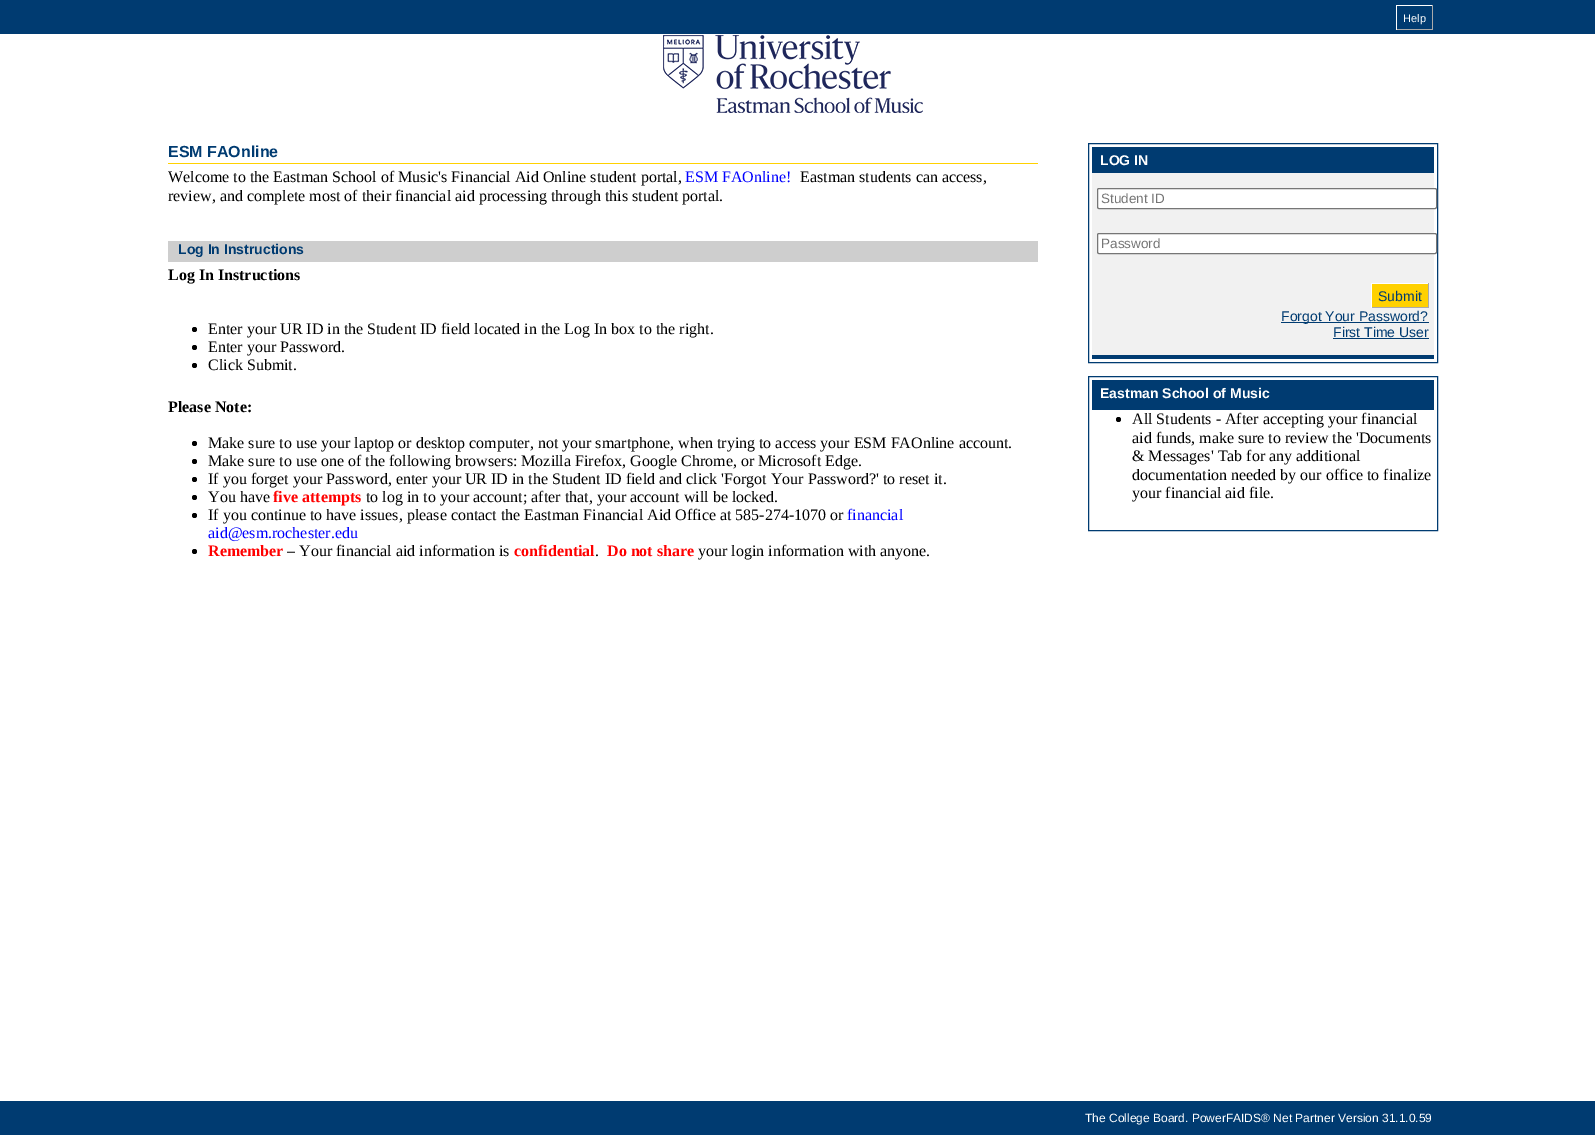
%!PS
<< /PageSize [1595 1135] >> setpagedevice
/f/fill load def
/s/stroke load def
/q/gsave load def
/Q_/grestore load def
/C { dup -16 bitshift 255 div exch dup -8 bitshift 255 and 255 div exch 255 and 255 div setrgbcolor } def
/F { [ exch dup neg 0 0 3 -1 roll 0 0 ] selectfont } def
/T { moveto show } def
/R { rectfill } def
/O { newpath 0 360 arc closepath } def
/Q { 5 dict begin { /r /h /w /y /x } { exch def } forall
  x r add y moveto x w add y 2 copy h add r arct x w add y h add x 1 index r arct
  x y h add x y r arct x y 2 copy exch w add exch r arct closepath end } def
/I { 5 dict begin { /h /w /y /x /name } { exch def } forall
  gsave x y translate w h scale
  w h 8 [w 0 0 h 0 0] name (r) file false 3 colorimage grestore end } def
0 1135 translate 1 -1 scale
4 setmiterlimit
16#FFFFFF C
0 0 1595 1135 R
16#003B71 C
0 0 1595 34 R
16#FFFFFF C
1396 5 37 1 R
16#AAAAAA C
1432 5 1 25 R
1396 29 37 1 R
16#FFFFFF C
1396 5 1 25 R
/LiberationSans-Regular 11 F
(Help) 1403 22 T
(1.rgb) 663 35 260 78 I
16#FFD100 C
168 163 870 1 R
/LiberationSans-Bold 16 F
16#003B71 C
(ESM FAOnline) 168 157 T
/LiberationSerif-Regular 16 F
16#000000 C
(Welcome to the Eastman School of Music's Financial Aid Online student portal,) 168 182 T
16#0000FF C
(ESM FAOnline!) 685 182 T
16#000000 C
(Eastman students can access,) 800 182 T
(review, and complete most of their financial aid processing through this student portal.) 168 201 T
16#CECECE C
168 241 870 21 R
/LiberationSans-Bold 14 F
16#003B71 C
(Log In Instructions) 178 254 T
/LiberationSerif-Bold 16 F
16#000000 C
(Log In Instructions) 168 280 T
194.5 329.5 2.5 O f
/LiberationSerif-Regular 16 F
(Enter your UR ID in the Student ID field located in the Log In box to the right.) 208 334 T
194.5 347.5 2.5 O f
(Enter your Password.) 208 352 T
194.5 365.5 2.5 O f
(Click Submit.) 208 370 T
/LiberationSerif-Bold 16 F
(Please Note:) 168 412 T
194.5 443.5 2.5 O f
/LiberationSerif-Regular 16 F
(Make sure to use your laptop or desktop computer, not your smartphone, when trying to access your ESM FAOnline account.) 208 448 T
194.5 461.5 2.5 O f
(Make sure to use one of the following browsers: Mozilla Firefox, Google Chrome, or Microsoft Edge.) 208 466 T
194.5 479.5 2.5 O f
(If you forget your Password, enter your UR ID in the Student ID field and click 'Forgot Your Password?' to reset it.) 208 484 T
194.5 497.5 2.5 O f
(You have) 208 502 T
/LiberationSerif-Bold 16 F
16#FF0000 C
(five attempts) 273 502 T
/LiberationSerif-Regular 16 F
16#000000 C
(to log in to your account; after that, your account will be locked.) 366 502 T
194.5 515.5 2.5 O f
(If you continue to have issues, please contact the Eastman Financial Aid Office at 585-274-1070 or) 208 520 T
16#0000FF C
(financial) 847 520 T
(aid@esm.rochester.edu) 208 538 T
16#000000 C
194.5 551.5 2.5 O f
/LiberationSerif-Bold 16 F
16#FF0000 C
(Remember) 208 556 T
/LiberationSerif-Regular 16 F
16#000000 C
(– Your financial aid information is) 287 556 T
/LiberationSerif-Bold 16 F
16#FF0000 C
(confidential) 514 556 T
(Do not share) 607 556 T
/LiberationSerif-Regular 16 F
16#000000 C
(your login information with anyone.) 698 556 T
(.) 595 556 T
16#003B71 C
1088.5 143.5 349 219 rectstroke
1092 147 342 26 R
/LiberationSans-Bold 14 F
16#FFFFFF C
(LOG IN) 1100 165 T
16#F1F1F1 C
1092 173 342 182 R
16#003B71 C
1092 355 342 4 R
16#FFFFFF C
1097.5 188.5 339 20 1.5 Q q f Q_
16#767676 C
s
/LiberationSans-Regular 13.5 F
16#757575 C
(Student ID) 1101 203 T
16#FFFFFF C
1097.5 233.5 339 20 1.5 Q q f Q_
16#767676 C
s
16#757575 C
(Password) 1101 248 T
16#FFD100 C
1372 284 56 23 R
16#FFFFFF C
1371 283 58 1 R
16#AAAAAA C
1428 283 1 25 R
1371 307 58 1 R
16#FFFFFF C
1371 283 1 25 R
/LiberationSans-Regular 14 F
16#003B71 C
(Submit) 1378 301 T
1281 322 148 1 R
(Forgot Your Password?) 1281 321 T
(First Time User) 1333 337 T
1333 338 96 1 R
1088.5 376.5 349 154 rectstroke
1092 380 342 30 R
/LiberationSans-Bold 14 F
16#FFFFFF C
(Eastman School of Music) 1100 398 T
16#000000 C
1118.5 419.5 2.5 O f
/LiberationSerif-Regular 16 F
(All Students - After accepting your financial) 1132 424 T
(aid funds, make sure to review the 'Documents) 1132 443 T
(& Messages' Tab for any additional) 1132 461 T
(documentation needed by our office to finalize) 1132 480 T
(your financial aid file.) 1132 498 T
16#003B71 C
0 1101 1595 34 R
/LiberationSans-Regular 12 F
16#FFFFFF C
(The College Board. PowerFAIDS® Net Partner Version 31.1.0.59) 1085 1122 T
showpage
